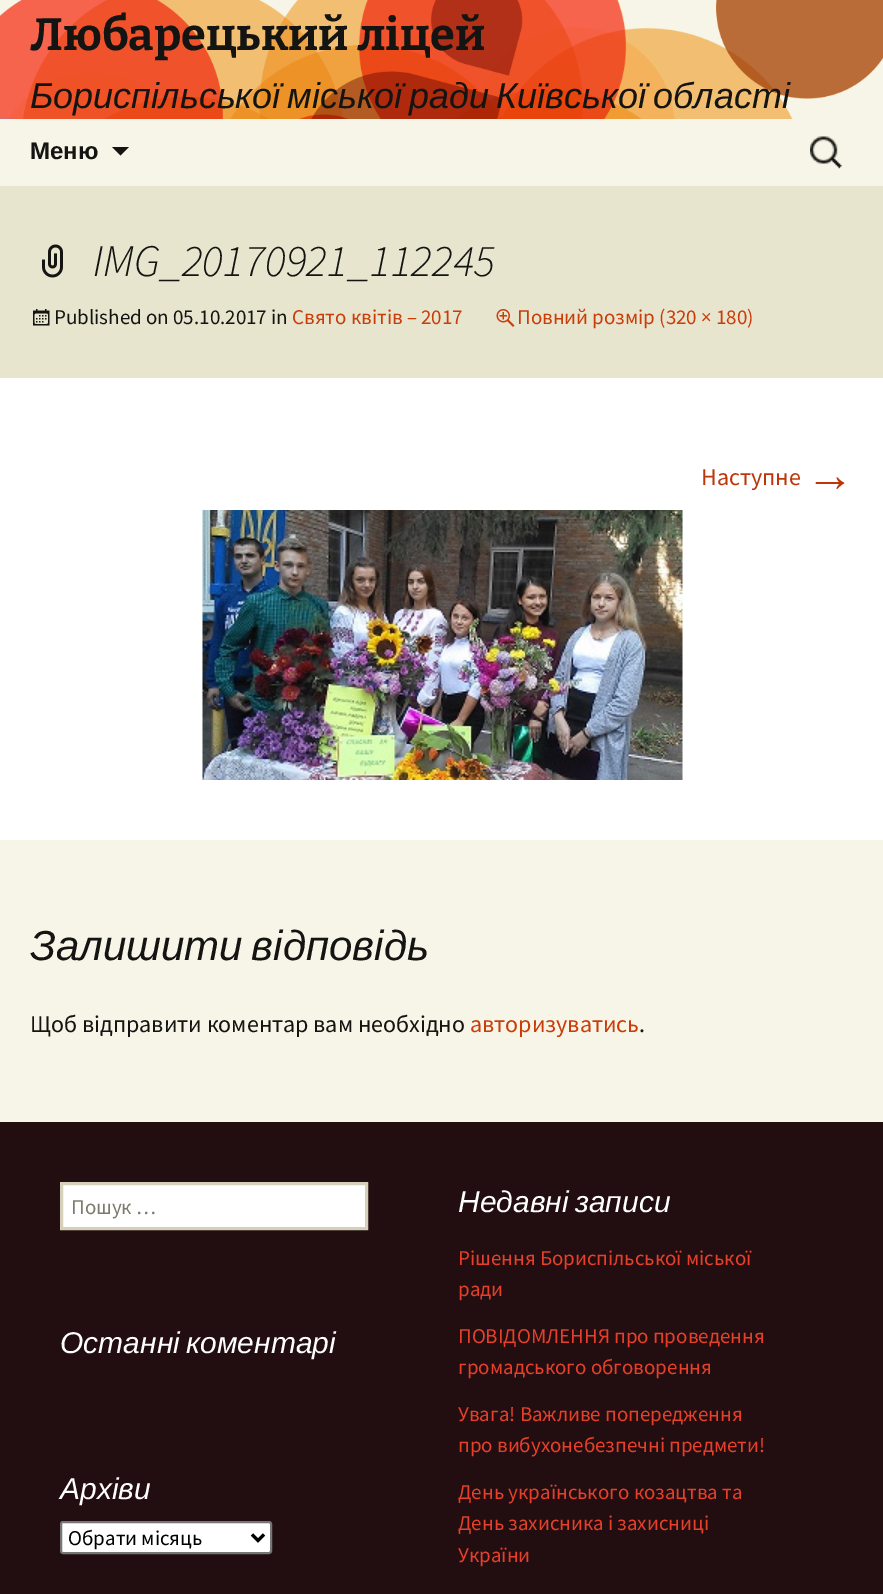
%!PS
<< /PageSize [883 1594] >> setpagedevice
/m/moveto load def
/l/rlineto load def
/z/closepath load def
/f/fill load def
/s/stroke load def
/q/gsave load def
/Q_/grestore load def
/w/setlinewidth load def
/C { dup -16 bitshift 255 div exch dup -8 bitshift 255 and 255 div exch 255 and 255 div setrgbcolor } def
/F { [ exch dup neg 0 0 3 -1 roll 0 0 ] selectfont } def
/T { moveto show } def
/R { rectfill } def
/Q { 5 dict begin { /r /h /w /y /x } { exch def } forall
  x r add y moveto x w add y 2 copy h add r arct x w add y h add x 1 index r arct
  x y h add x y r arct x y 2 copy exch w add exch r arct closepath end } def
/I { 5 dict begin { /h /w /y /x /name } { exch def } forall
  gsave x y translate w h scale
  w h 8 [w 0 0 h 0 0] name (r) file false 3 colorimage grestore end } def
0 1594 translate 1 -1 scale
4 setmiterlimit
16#220E10 C
0 0 883 1594 R
(1.rgb) 0 0 883 119 I
/Bitter-Bold 45 F
16#141412 C
(Любарецький ліцей) 30 50 T
/LiberationSans-Italic 36 F
30 108 m -3 0 32 (Бориспільської міської ради Київської області) widthshow
16#F7F5E7 C
0 119 883 67 R
/LiberationSans-Bold 24 F
16#141412 C
(Меню) 30 159 T
112 147 m 8.5 8.5 l 8.5 -8.5 l z f
(2.rgb) 810 136 32 33 I
16#E8E5CE C
0 186 883 192 R
(3.rgb) 42 244 21 34 I
/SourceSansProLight-LightItalic 45 F
16#141412 C
(IMG_20170921_112245) 93 276 T
(4.rgb) 33 309 17 17 I
/SourceSansPro-Regular 21 F
(Published on 05.10.2017 in) 54 324 T
16#CA3C08 C
(Свято квітів – 2017) 292 324 T
(5.rgb) 496 309 19 18 I
(Повний розмір \(320 × 180\)) 517 324 T
16#FFFFFF C
0 378 883 462 R
/SourceSansPro-Regular 24 F
16#BC360A C
(Наступне) 701 485 T
/LiberationSans-Regular 48 F
(→) 806 491 T
(6.rgb) 202 510 481 270 I
16#F7F5E7 C
0 840 883 282 R
/LiberationSans-Italic 42 F
16#141412 C
30 960 m -3 0 32 (Залишити відповідь) widthshow
/SourceSansPro-Regular 24 F
(Щоб відправити коментар вам необхідно) 30 1032 T
16#CA3C08 C
(авторизуватись) 470 1032 T
16#141412 C
(.) 639 1032 T
16#FFFFFF C
61.5 1183.5 m 305 0 l 0 45 l -305 0 l z q f Q_
16#D4D0BA C
3 w
s
/SourceSansPro-Regular 21 F
16#7D7B6D C
(Пошук …) 71 1214 T
/LiberationSans-Italic 30 F
16#FFFFFF C
458 1212 m -2 0 32 (Недавні записи) widthshow
/SourceSansPro-Regular 21 F
16#E6402A C
(Рішення Бориспільської міської) 458 1265 T
(ради) 458 1296 T
(ПОВІДОМЛЕННЯ про проведення) 458 1343 T
(громадського обговорення) 458 1374 T
(Увага! Важливе попередження) 458 1421 T
(про вибухонебезпечні предмети!) 458 1452 T
(День українського козацтва та) 458 1499 T
(День захисника і захисниці) 458 1530 T
(України) 458 1562 T
/LiberationSans-Italic 30 F
16#FFFFFF C
60 1353 m -2 0 32 (Останні коментарі) widthshow
(Архіви) 60 1499 T
61 1522 210 31 2 Q q f Q_
16#767676 C
2 w
s
16#000000 C
3 w
252 1534.5 m 6 6 l 6 -6 l s
/SourceSansPro-Regular 21 F
(Обрати місяць) 68 1545 T
showpage
